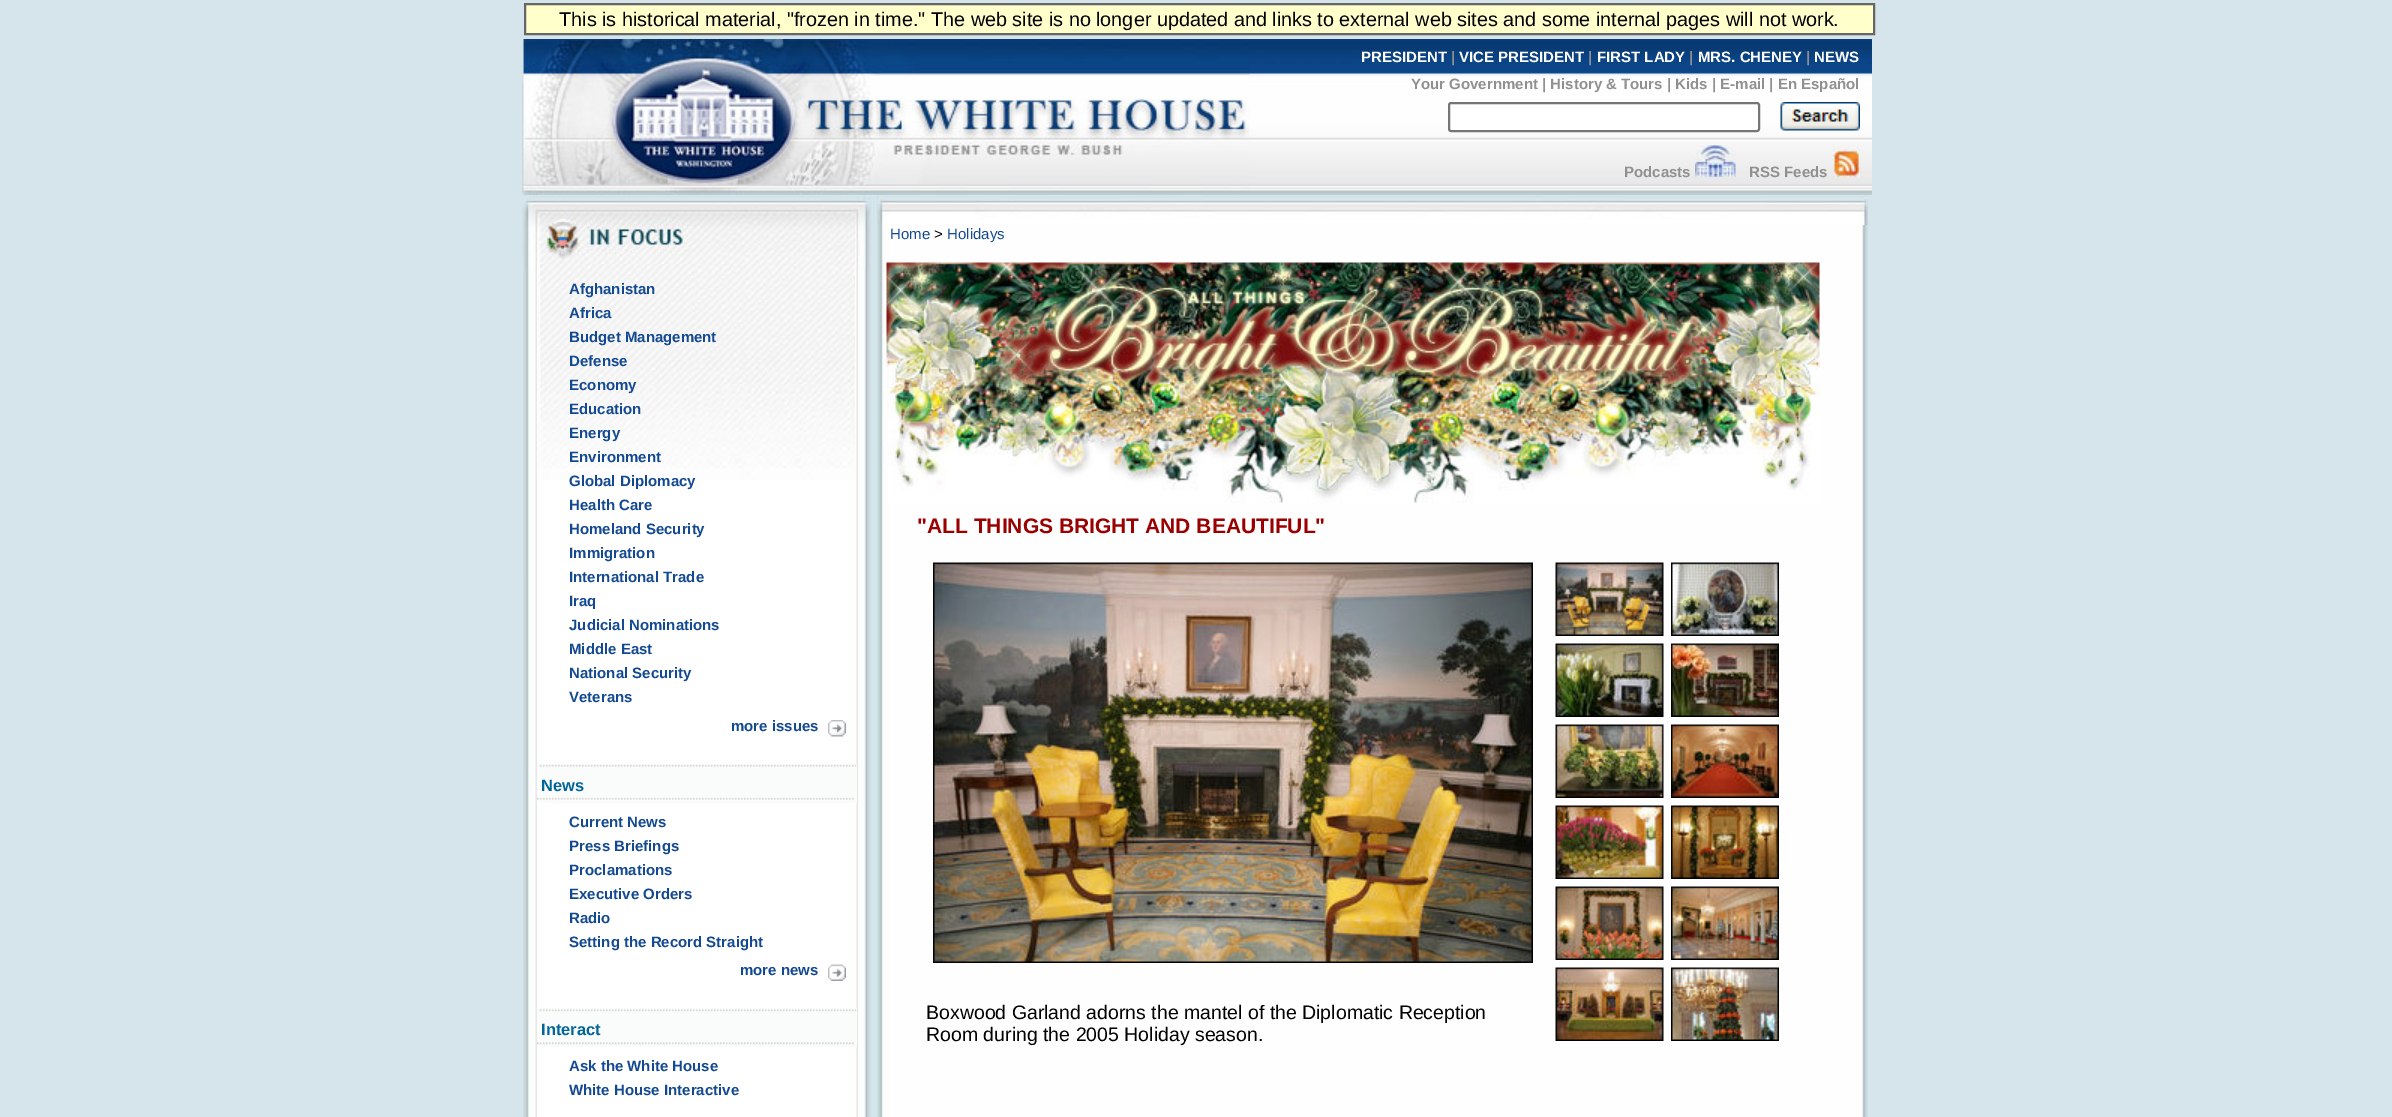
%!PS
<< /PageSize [2392 1117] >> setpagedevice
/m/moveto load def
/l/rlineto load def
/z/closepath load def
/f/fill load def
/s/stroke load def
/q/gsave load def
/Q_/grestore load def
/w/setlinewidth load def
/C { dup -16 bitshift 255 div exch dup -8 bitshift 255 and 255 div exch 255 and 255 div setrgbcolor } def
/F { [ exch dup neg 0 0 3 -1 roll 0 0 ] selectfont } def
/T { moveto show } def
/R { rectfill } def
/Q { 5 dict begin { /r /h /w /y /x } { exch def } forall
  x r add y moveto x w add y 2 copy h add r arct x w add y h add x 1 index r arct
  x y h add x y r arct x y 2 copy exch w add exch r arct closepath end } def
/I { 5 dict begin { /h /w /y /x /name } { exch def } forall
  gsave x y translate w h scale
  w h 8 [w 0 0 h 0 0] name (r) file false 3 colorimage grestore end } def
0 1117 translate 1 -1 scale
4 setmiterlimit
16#D5E5EB C
0 0 2392 1117 R
16#FFFFCC C
525 4 m 1349 0 l 0 30 l -1349 0 l z q f Q_
16#666666 C
2 w
s
/LiberationSans-Regular 19.8 F
16#000000 C
(This is historical material, "frozen in time.") 559 26 T
(The web site is no longer updated and links to external web sites and some internal pages will not work.) 931 26 T
(1.rgb) 1249 39 623 156 I
(2.rgb) 522 39 728 156 I
/LiberationSans-Bold 15 F
16#FFFFFF C
(PRESIDENT) 1361 62 T
16#919090 C
(|) 1451 62 T
16#FFFFFF C
(VICE PRESIDENT) 1459 62 T
16#919090 C
(|) 1588 62 T
16#FFFFFF C
(FIRST LADY) 1597 62 T
16#919090 C
(|) 1689 62 T
16#FFFFFF C
(MRS. CHENEY) 1698 62 T
16#919090 C
(|) 1806 62 T
16#FFFFFF C
(NEWS) 1814 62 T
16#919090 C
(Your Government | History & Tours | Kids | E-mail | En Español) 1411 89 T
16#FFFFFF C
1449 103 310 28 2 Q q f Q_
16#767676 C
s
(3.rgb) 1780 102 80 29 I
16#919090 C
(Podcasts) 1624 177 T
(4.rgb) 1695 144 41 33 I
(RSS Feeds) 1749 177 T
(5.rgb) 1833 144 27 33 I
(6.rgb) 523 195 1345 922 I
(7.rgb) 877 195 991 30 I
(8.rgb) 525 270 344 847 I
(9.rgb) 522 195 349 75 I
(10.rgb) 537 264 318 216 I
16#134992 C
(Afghanistan) 569 294 T
(Africa) 569 318 T
(Budget Management) 569 342 T
(Defense) 569 366 T
(Economy) 569 390 T
(Education) 569 414 T
(Energy) 569 438 T
(Environment) 569 462 T
(Global Diplomacy) 569 486 T
(Health Care) 569 510 T
(Homeland Security) 569 534 T
(Immigration) 569 558 T
(International Trade) 569 582 T
(Iraq) 569 606 T
(Judicial Nominations) 569 630 T
(Middle East) 569 654 T
(National Security) 569 678 T
(Veterans) 569 702 T
(more issues) 731 731 T
(11.rgb) 828 720 18 17 I
16#FAFCFC C
539 764 318 39 R
(12.rgb) 538 764 319 3 I
/LiberationSans-Bold 16.5 F
16#006699 C
(News) 541 791 T
(13.rgb) 537 797 317 3 I
/LiberationSans-Bold 15 F
16#134992 C
(Current News) 569 827 T
(Press Briefings) 569 851 T
(Proclamations) 569 875 T
(Executive Orders) 569 899 T
(Radio) 569 923 T
(Setting the Record Straight) 569 947 T
(more news) 740 975 T
(14.rgb) 828 964 18 17 I
16#FAFCFC C
539 1008 318 39 R
(15.rgb) 538 1009 319 3 I
/LiberationSans-Bold 16.5 F
16#006699 C
(Interact) 541 1035 T
(16.rgb) 537 1042 317 3 I
/LiberationSans-Bold 15 F
16#134992 C
(Ask the White House) 569 1071 T
(White House Interactive) 569 1095 T
/LiberationSans-Regular 15 F
(Home) 890 239 T
16#000000 C
(>) 934 239 T
16#134992 C
(Holidays) 947 239 T
(17.rgb) 886 262 934 241 I
/LiberationSans-Bold 21 F
16#9B0000 C
("ALL THINGS BRIGHT AND BEAUTIFUL") 917 533 T
(18.rgb) 933 562 600 401 I
/LiberationSans-Regular 19.5 F
16#000000 C
(Boxwood Garland adorns the mantel of the Diplomatic Reception) 926 1019 T
(Room during the 2005 Holiday season.) 926 1041 T
(19.rgb) 1555 562 109 74 I
(20.rgb) 1671 562 108 74 I
(21.rgb) 1555 643 109 74 I
(22.rgb) 1671 643 108 74 I
(23.rgb) 1555 724 109 74 I
(24.rgb) 1671 724 108 74 I
(25.rgb) 1555 805 109 74 I
(26.rgb) 1671 805 108 74 I
(27.rgb) 1555 886 109 74 I
(28.rgb) 1671 886 108 74 I
(29.rgb) 1555 967 109 74 I
(30.rgb) 1671 967 108 74 I
showpage
